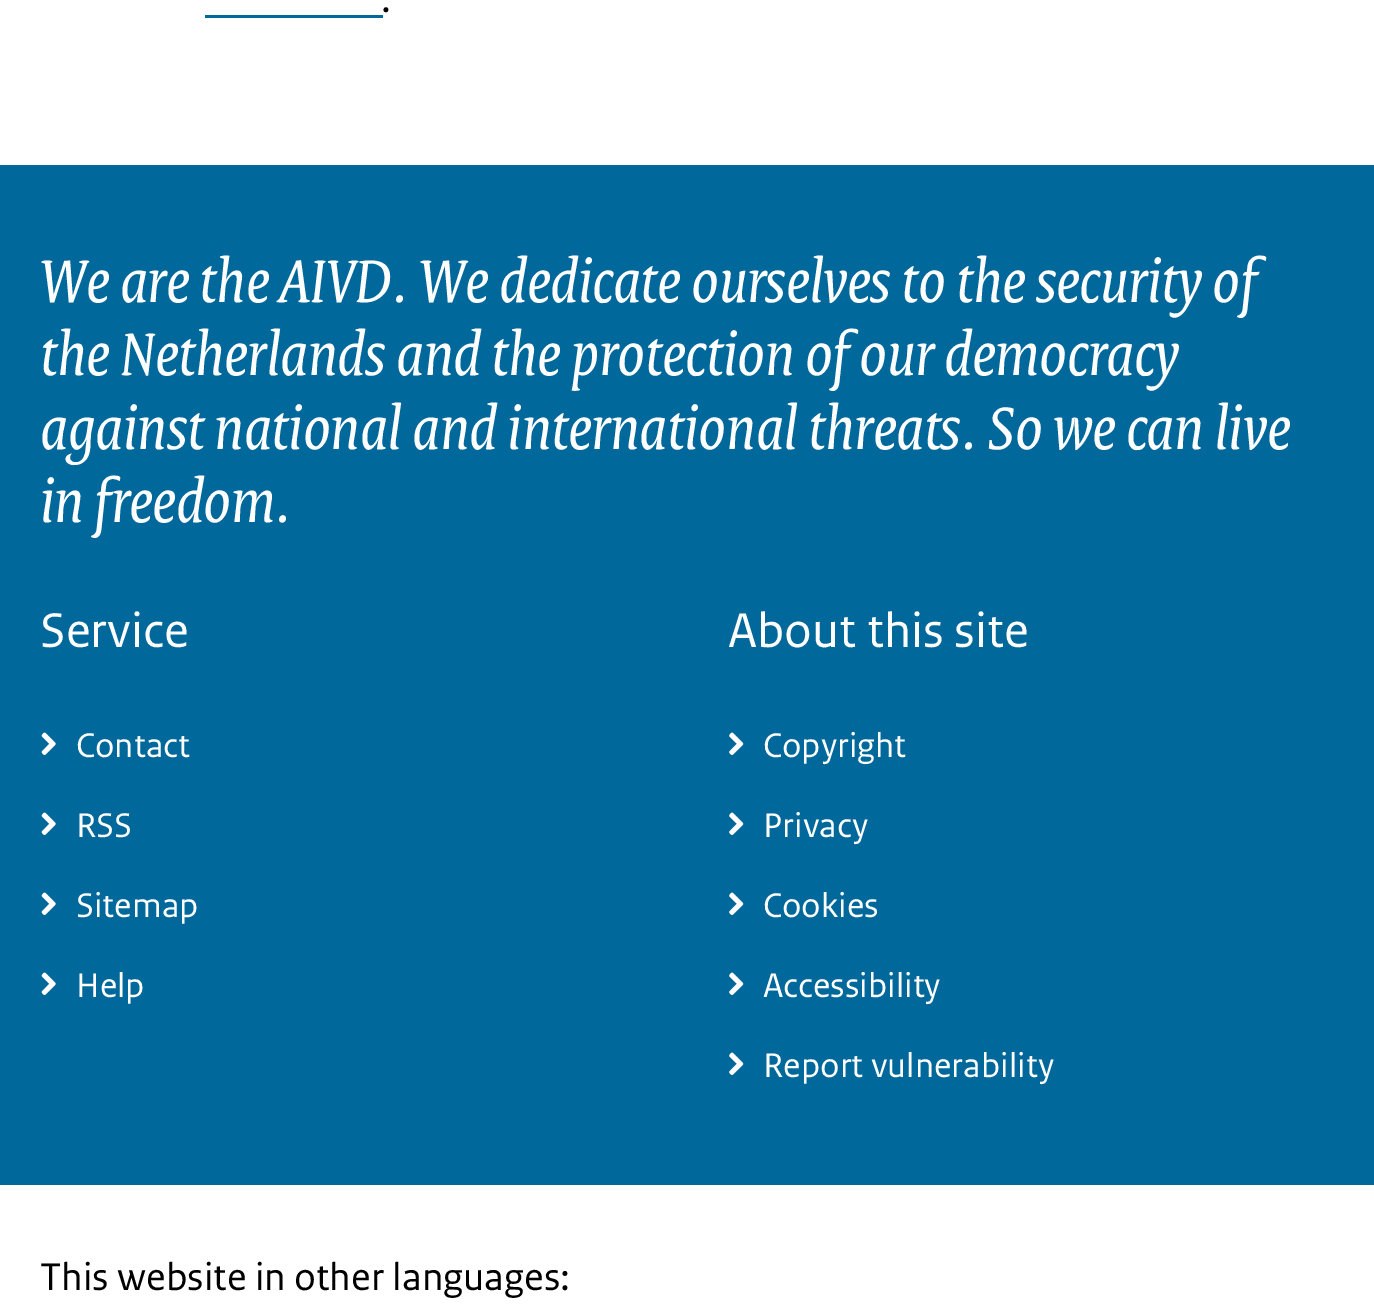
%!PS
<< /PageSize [1374 1308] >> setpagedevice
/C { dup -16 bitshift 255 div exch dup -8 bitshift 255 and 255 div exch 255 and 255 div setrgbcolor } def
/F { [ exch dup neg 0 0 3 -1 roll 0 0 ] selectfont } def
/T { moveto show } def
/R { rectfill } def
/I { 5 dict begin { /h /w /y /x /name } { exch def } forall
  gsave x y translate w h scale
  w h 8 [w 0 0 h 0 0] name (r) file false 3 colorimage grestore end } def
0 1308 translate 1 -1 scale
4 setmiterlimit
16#FFFFFF C
0 0 1374 1308 R
/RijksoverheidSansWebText-Regular 40.5 F
16#000000 C
(.) 381 12 T
16#01689B C
205 15 178 3 R
0 165 1374 1020 R
/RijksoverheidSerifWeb-Italic 64.9 F
16#FFFFFF C
(We are the AIVD. We dedicate ourselves to the security of) 40 302 T
(the Netherlands and the protection of our democracy) 40 375 T
(against national and international threats. So we can live) 40 449 T
(in freedom.) 40 522 T
/RijksoverheidSansWebText-Regular 51.25 F
(Service) 40 647 T
(1.rgb) 41 732 15 23 I
/RijksoverheidSansWebText-Regular 36 F
(Contact) 76 757 T
(1.rgb) 41 812 15 23 I
(RSS) 76 837 T
(1.rgb) 41 892 15 23 I
(Sitemap) 76 917 T
(1.rgb) 41 972 15 23 I
(Help) 76 997 T
/RijksoverheidSansWebText-Regular 51.25 F
(About this site) 728 647 T
(2.rgb) 729 732 15 23 I
/RijksoverheidSansWebText-Regular 36 F
(Copyright) 763 757 T
(2.rgb) 729 812 15 23 I
(Privacy) 763 837 T
(2.rgb) 729 892 15 23 I
(Cookies) 763 917 T
(2.rgb) 729 972 15 23 I
(Accessibility) 763 997 T
(2.rgb) 729 1052 15 23 I
(Report vulnerability) 763 1077 T
/RijksoverheidSansWebText-Regular 40.5 F
16#000000 C
(This website in other languages:) 40 1290 T
showpage
